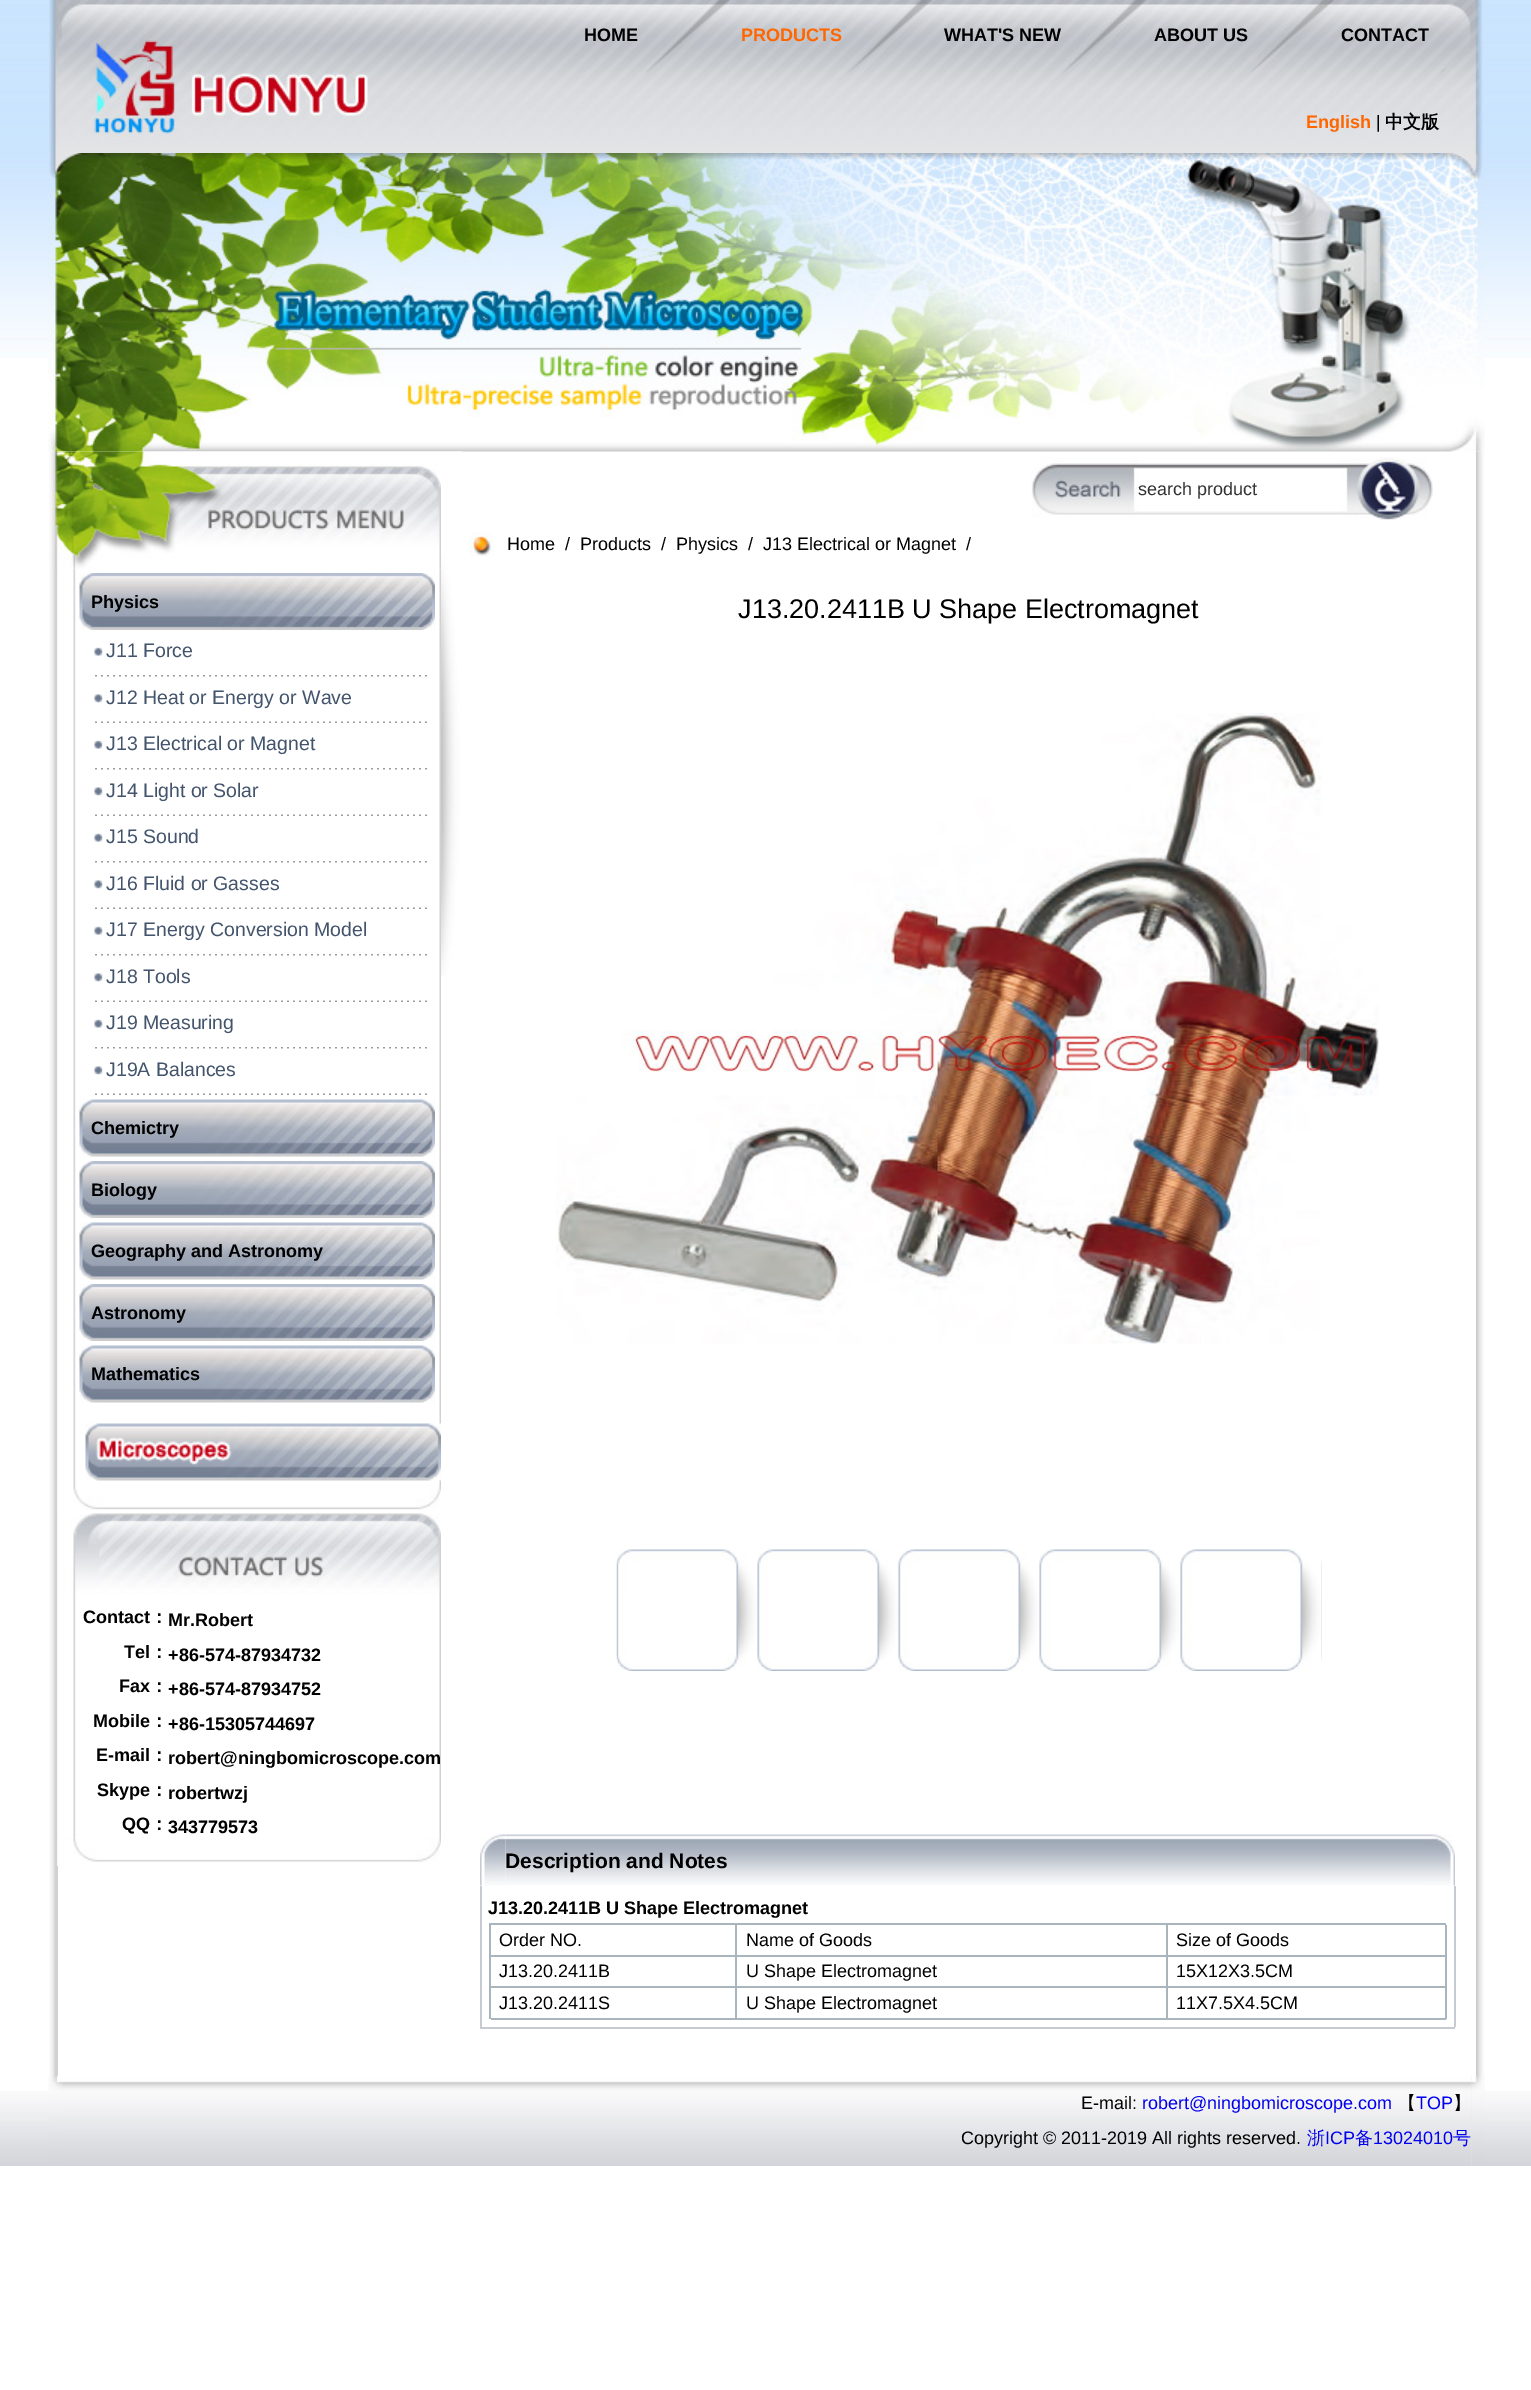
%!PS
<< /PageSize [1531 2390] >> setpagedevice
/C { dup -16 bitshift 255 div exch dup -8 bitshift 255 and 255 div exch 255 and 255 div setrgbcolor } def
/F { [ exch dup neg 0 0 3 -1 roll 0 0 ] selectfont } def
/T { moveto show } def
/R { rectfill } def
/I { 5 dict begin { /h /w /y /x /name } { exch def } forall
  gsave x y translate w h scale
  w h 8 [w 0 0 h 0 0] name (r) file false 3 colorimage grestore end } def
0 2390 translate 1 -1 scale
4 setmiterlimit
16#FFFFFF C
0 0 1531 2390 R
(1.rgb) 0 2091 1531 75 I
(2.rgb) 0 0 1531 358 I
(3.rgb) 48 0 537 153 I
(4.rgb) 585 0 900 153 I
/LiberationSans-Bold 18 F
16#000000 C
(HOME) 584 41 T
16#FF6600 C
(PRODUCTS) 741 41 T
16#000000 C
(WHAT'S NEW) 944 41 T
(ABOUT US) 1154 41 T
(CONTACT) 1341 41 T
16#FF6600 C
(English) 1306 128 T
/LiberationSans-Regular 18 F
16#000000 C
(|) 1376 128 T
/WenQuanYiZenHei-Bold 18 F
(中文版) 1385 128 T
(6.rgb) 49 451 6 1625 I
16#D1D1D1 C
55 451 3 1625 R
(28.rgb) 1476 451 8 1625 I
(5.rgb) 48 153 1437 299 I
(8.rgb) 57 568 384 917 I
(7.rgb) 55 451 386 118 I
(9.rgb) 79 573 356 57 I
/LiberationSans-Bold 18 F
16#000000 C
(Physics) 91 608 T
(10.rgb) 95 675 332 2 I
(11.rgb) 94 647 9 9 I
/LiberationSans-Regular 19.5 F
16#43546C C
(J11 Force) 106 657 T
(12.rgb) 95 721 332 2 I
(13.rgb) 94 694 9 9 I
(J12 Heat or Energy or Wave) 106 704 T
(10.rgb) 95 768 332 2 I
(11.rgb) 94 740 9 9 I
(J13 Electrical or Magnet) 106 750 T
(12.rgb) 95 814 332 2 I
(13.rgb) 94 787 9 9 I
(J14 Light or Solar) 106 797 T
(10.rgb) 95 861 332 2 I
(11.rgb) 94 833 9 9 I
(J15 Sound) 106 843 T
(12.rgb) 95 907 332 2 I
(13.rgb) 94 880 9 9 I
(J16 Fluid or Gasses) 106 890 T
(10.rgb) 95 954 332 2 I
(11.rgb) 94 926 9 9 I
(J17 Energy Conversion Model) 106 936 T
(12.rgb) 95 1000 332 2 I
(13.rgb) 94 973 9 9 I
(J18 Tools) 106 983 T
(10.rgb) 95 1047 332 2 I
(11.rgb) 94 1019 9 9 I
(J19 Measuring) 106 1029 T
(12.rgb) 95 1093 332 2 I
(13.rgb) 94 1066 9 9 I
(J19A Balances) 106 1076 T
(14.rgb) 79 1099 356 58 I
/LiberationSans-Bold 18 F
16#000000 C
(Chemictry) 91 1134 T
(9.rgb) 79 1161 356 57 I
(Biology) 91 1196 T
(14.rgb) 79 1222 356 58 I
(Geography and Astronomy) 91 1257 T
(9.rgb) 79 1284 356 57 I
(Astronomy) 91 1319 T
(14.rgb) 79 1345 356 58 I
(Mathematics) 91 1380 T
(15.rgb) 85 1423 356 58 I
(16.rgb) 57 1485 384 29 I
(17.rgb) 57 1513 384 83 I
(18.rgb) 57 1596 384 242 I
(Contact) 83 1623 T
/WenQuanYiZenHei-Bold 18 F
(：) 150 1623 T
/LiberationSans-Bold 18 F
(Mr.Robert) 168 1626 T
(Tel) 124 1658 T
/WenQuanYiZenHei-Bold 18 F
(：) 150 1658 T
/LiberationSans-Bold 18 F
(+86-574-87934732) 168 1661 T
(Fax) 119 1692 T
/WenQuanYiZenHei-Bold 18 F
(：) 150 1692 T
/LiberationSans-Bold 18 F
(+86-574-87934752) 168 1695 T
(Mobile) 93 1727 T
/WenQuanYiZenHei-Bold 18 F
(：) 150 1727 T
/LiberationSans-Bold 18 F
(+86-15305744697) 168 1730 T
(E-mail) 96 1761 T
/WenQuanYiZenHei-Bold 18 F
(：) 150 1761 T
/LiberationSans-Bold 18 F
(robert@ningbomicroscope.com) 168 1764 T
(Skype) 97 1796 T
/WenQuanYiZenHei-Bold 18 F
(：) 150 1796 T
/LiberationSans-Bold 18 F
(robertwzj) 168 1799 T
(QQ) 122 1830 T
/WenQuanYiZenHei-Bold 18 F
(：) 150 1830 T
/LiberationSans-Bold 18 F
(343779573) 168 1833 T
(19.rgb) 57 1837 384 29 I
(20.rgb) 441 451 21 525 I
(21.rgb) 1031 457 402 63 I
/LiberationSans-Regular 18 F
16#333333 C
(search product) 1138 495 T
(22.rgb) 469 532 25 25 I
16#000000 C
(Home) 507 550 T
(/) 565 550 T
(Products) 580 550 T
(/) 661 550 T
(Physics) 676 550 T
(/) 748 550 T
(J13 Electrical or Magnet) 763 550 T
(/) 966 550 T
/LiberationSans-Regular 27 F
(J13.20.2411B U Shape Electromagnet) 738 618 T
(23.rgb) 556 713 823 631 I
(24.rgb) 616 1549 706 122 I
(26.rgb) 505 1834 920 51 I
(25.rgb) 480 1834 26 52 I
/LiberationSans-Bold 21 F
(Description and Notes) 505 1868 T
(27.rgb) 1425 1834 30 52 I
16#C5CAD3 C
480 1886 2 141 R
/LiberationSans-Bold 18 F
16#000000 C
(J13.20.2411B U Shape Electromagnet) 488 1914 T
16#A8B5BD C
489 1923 957 2 R
489 1923 2 96 R
735 1925 2 31 R
491 1955 246 2 R
/LiberationSans-Regular 18 F
16#000000 C
(Order NO.) 499 1946 T
16#A8B5BD C
1166 1925 2 31 R
737 1955 430 2 R
16#000000 C
(Name of Goods) 746 1946 T
16#A8B5BD C
1445 1925 2 31 R
1167 1955 279 2 R
16#000000 C
(Size of Goods) 1176 1946 T
16#A8B5BD C
735 1956 2 63 R
491 1986 246 2 R
16#000000 C
(J13.20.2411B) 499 1977 T
16#A8B5BD C
1166 1956 2 63 R
737 1986 430 2 R
16#000000 C
(U Shape Electromagnet) 746 1977 T
16#A8B5BD C
1445 1956 2 63 R
1167 1986 279 2 R
16#000000 C
(15X12X3.5CM) 1176 1977 T
16#A8B5BD C
491 2018 955 2 R
16#000000 C
(J13.20.2411S) 499 2009 T
(U Shape Electromagnet) 746 2009 T
(11X7.5X4.5CM) 1176 2009 T
16#C5CAD3 C
1454 1886 2 141 R
480 2027 975 2 R
(29.rgb) 48 2076 15 90 I
(30.rgb) 63 2076 1409 90 I
16#000000 C
(E-mail:) 1081 2109 T
16#0000EE C
(robert@ningbomicroscope.com) 1142 2109 T
/WenQuanYiZenHei-Medium 18 F
16#000000 C
(【) 1398 2109 T
/LiberationSans-Regular 18 F
16#0000EE C
(TOP) 1416 2109 T
/WenQuanYiZenHei-Medium 18 F
16#000000 C
(】) 1453 2109 T
/LiberationSans-Regular 18 F
(Copyright © 2011-2019 All rights reserved.) 961 2144 T
/WenQuanYiZenHei-Medium 18 F
16#0000EE C
(浙) 1307 2144 T
/LiberationSans-Regular 18 F
(ICP) 1325 2144 T
/WenQuanYiZenHei-Medium 18 F
(备) 1355 2144 T
/LiberationSans-Regular 18 F
(13024010) 1373 2144 T
/WenQuanYiZenHei-Medium 18 F
(号) 1453 2144 T
(31.rgb) 1471 2076 14 90 I
showpage
